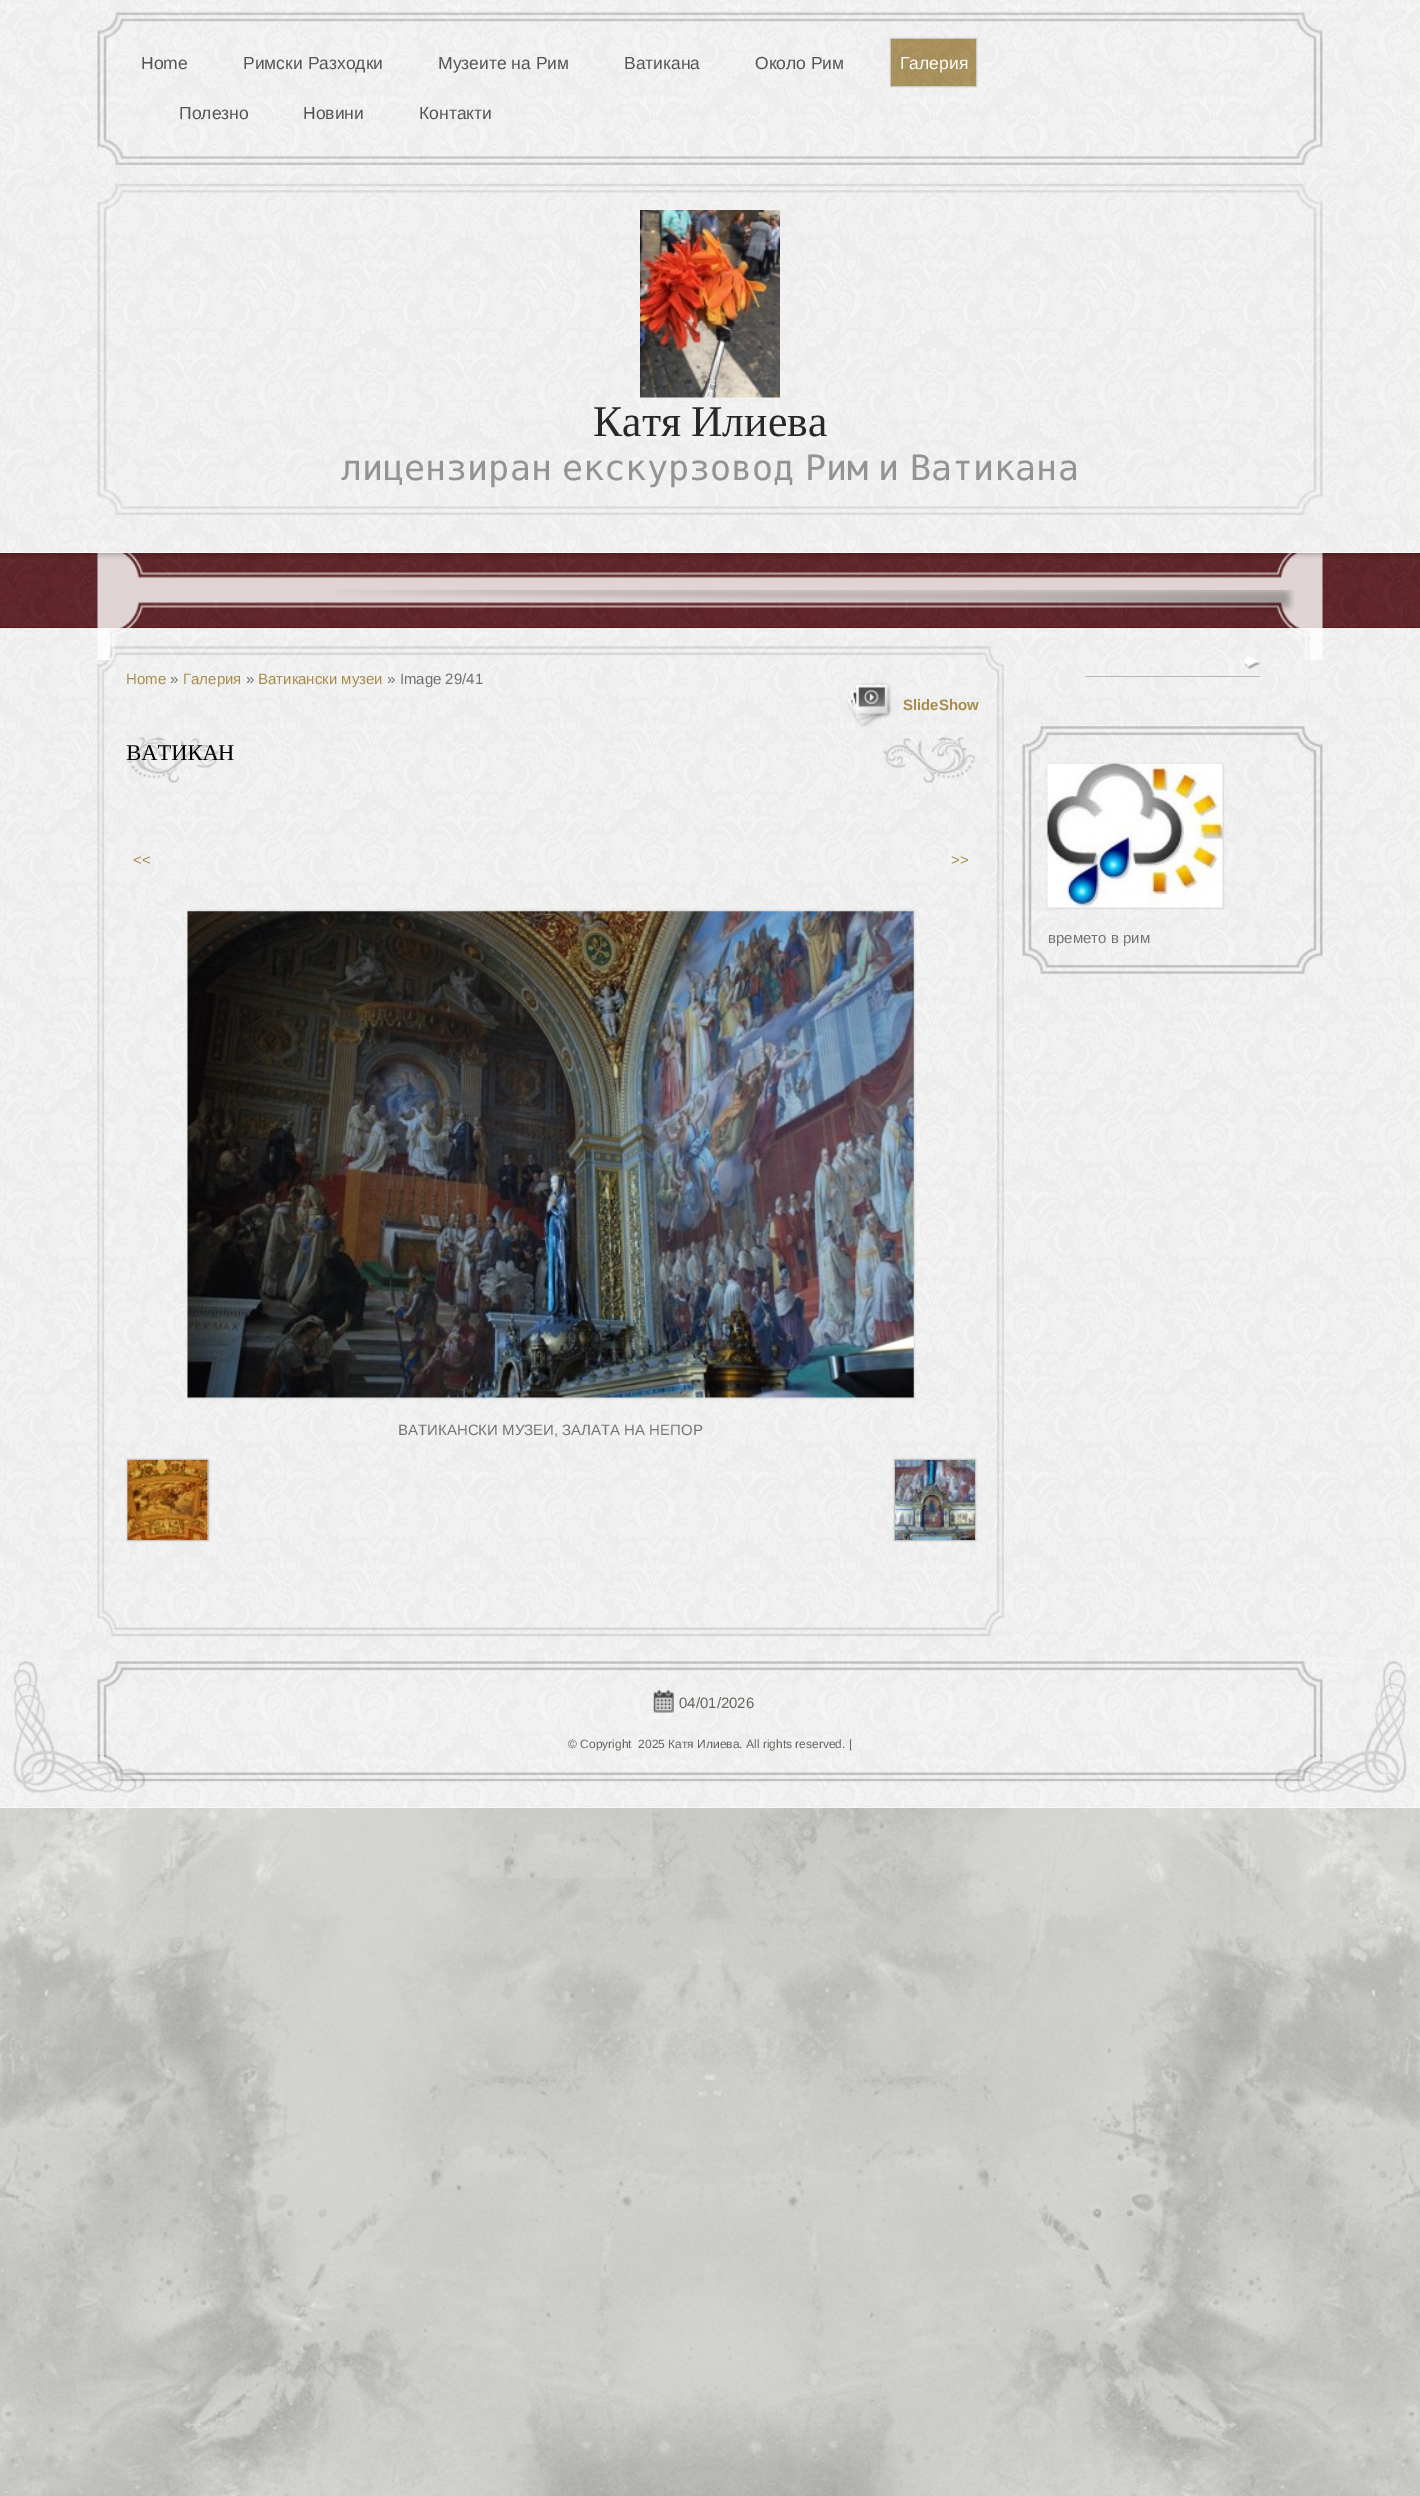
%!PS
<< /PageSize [1420 2496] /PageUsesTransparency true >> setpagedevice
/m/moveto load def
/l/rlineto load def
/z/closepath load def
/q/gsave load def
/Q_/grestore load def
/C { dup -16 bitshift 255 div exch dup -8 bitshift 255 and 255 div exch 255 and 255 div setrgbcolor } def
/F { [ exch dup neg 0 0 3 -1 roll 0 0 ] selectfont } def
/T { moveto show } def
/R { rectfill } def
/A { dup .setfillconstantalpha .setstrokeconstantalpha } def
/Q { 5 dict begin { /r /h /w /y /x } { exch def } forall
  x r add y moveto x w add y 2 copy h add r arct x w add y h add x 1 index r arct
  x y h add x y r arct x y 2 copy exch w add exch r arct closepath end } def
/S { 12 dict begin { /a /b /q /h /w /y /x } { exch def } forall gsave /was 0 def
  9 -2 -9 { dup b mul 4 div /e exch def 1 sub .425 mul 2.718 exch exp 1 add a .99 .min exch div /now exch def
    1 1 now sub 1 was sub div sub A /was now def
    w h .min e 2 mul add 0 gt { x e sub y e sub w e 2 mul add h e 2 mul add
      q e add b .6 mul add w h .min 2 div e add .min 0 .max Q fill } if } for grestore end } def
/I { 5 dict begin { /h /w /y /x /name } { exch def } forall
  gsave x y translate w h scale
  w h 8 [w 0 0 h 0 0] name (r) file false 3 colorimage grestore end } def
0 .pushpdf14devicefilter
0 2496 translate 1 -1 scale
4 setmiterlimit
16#FFFFFF C
0 0 1420 2496 R
(1.rgb) 0 1808 1420 688 I
16#4F080C C
0 553 1420 75 R
(8.rgb) 0 553 1420 75 I
(9.rgb) 97 553 1226 37 I
16#000000 C
0 163 1420 387 0 4 1 S
16#FFFFFF C
0 154 1420 399 R
(2.rgb) 0 0 1420 165 I
(3.rgb) 97 38 1226 101 I
/LiberationSans-Regular 17.5 F
16#545454 C
(Home) 141 69 T
(Римски Разходки) 243 69 T
(Музеите на Рим) 438 69 T
(Ватикана) 624 69 T
(Около Рим) 755 69 T
16#000000 C
891 39 85 47 0 1 .5 S
16#A78B4B C
891 39 85 47 R
(4.rgb) 891 39 85 47 I
16#FFFFFF C
(Галерия) 900 69 T
16#545454 C
(Полезно) 179 119 T
(Новини) 303 119 T
(Контакти) 419 119 T
(5.rgb) 0 165 1420 388 I
(6.rgb) 97 210 1226 279 I
(7.rgb) 640 210 140 188 I
/LiberationSerif-Regular 43.75 F
16#292828 C
593 436 m -1 0 32 (Катя Илиева) widthshow
/DejaVuSansMono-Regular 35 F
16#939393 C
341 480 m -10.5 0 32 (лицензиран екскурзовод Рим и Ватикана) widthshow
(12.rgb) 0 628 1420 1033 I
(13.rgb) 97 646 907 27 I
(22.rgb) 1244 656 17 14 I
(10.rgb) 97 590 1226 70 I
(11.rgb) 336 590 959 22 I
(14.rgb) 97 672 907 938 I
(15.rgb) 97 1610 907 27 I
/LiberationSans-Regular 15 F
16#A78B4B C
(Home) 126 684 T
16#706F6B C
(») 170 684 T
16#A78B4B C
(Галерия) 183 684 T
16#706F6B C
(») 246 684 T
16#A78B4B C
(Ватикански музеи) 258 684 T
16#706F6B C
(» Image 29/41) 387 684 T
(16.rgb) 847 682 45 45 I
/LiberationSans-Bold 15 F
16#A78B4B C
(SlideShow) 903 710 T
/LiberationSerif-Regular 22.5 F
16#000000 C
(ВАТИКАН) 126 760 T
(17.rgb) 127 737 92 46 I
(18.rgb) 883 737 92 46 I
/LiberationSans-Regular 15 F
16#A78B4B C
(<<) 133 865 T
(>>) 951 865 T
16#000000 C
188 911 726 487 0 1 .2 S
(19.rgb) 187 911 727 487 I
16#737373 C
(ВАТИКАНСКИ МУЗЕИ, ЗАЛАТА НА НЕПОР) 398 1435 T
16#000000 C
128 1460 80 80 0 1 .2 S
(20.rgb) 127 1460 81 80 I
q
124 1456 m 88 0 l 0 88 l -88 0 l z 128 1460 m 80 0 l 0 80 l -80 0 l z eoclip newpath
128 1460 80 80 0 1 .2 S
128 1460 80 80 0 1 .2 S
Q_
895 1460 80 80 0 1 .2 S
(21.rgb) 895 1460 80 80 I
q
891 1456 m 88 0 l 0 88 l -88 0 l z 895 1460 m 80 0 l 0 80 l -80 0 l z eoclip newpath
895 1460 80 80 0 1 .2 S
895 1460 80 80 0 1 .2 S
Q_
16#B7B6AF C
1085 676 175 1 R
(24.rgb) 1022 752 301 196 I
(23.rgb) 1022 726 301 248 I
16#000000 C
1048 764 175 144 0 1 .2 S
(25.rgb) 1047 763 176 145 I
16#737373 C
(времето в рим) 1048 943 T
(26.rgb) 0 1661 1420 147 I
(27.rgb) 97 1661 1226 121 I
(28.rgb) 97 1687 1226 70 I
(29.rgb) 653 1689 21 24 I
16#66645D C
(04/01/2026) 679 1708 T
/LiberationSans-Regular 12 F
(© Copyright  2025 Катя Илиева. All rights reserved. |) 568 1748 T
.poppdf14devicefilter showpage
